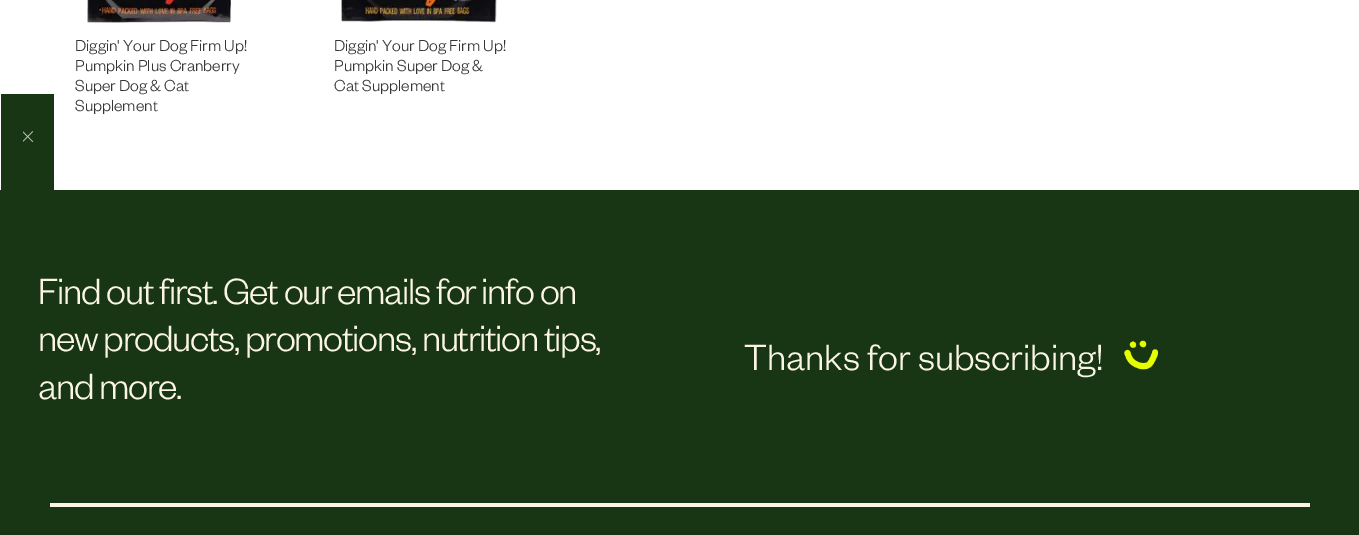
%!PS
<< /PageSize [1359 535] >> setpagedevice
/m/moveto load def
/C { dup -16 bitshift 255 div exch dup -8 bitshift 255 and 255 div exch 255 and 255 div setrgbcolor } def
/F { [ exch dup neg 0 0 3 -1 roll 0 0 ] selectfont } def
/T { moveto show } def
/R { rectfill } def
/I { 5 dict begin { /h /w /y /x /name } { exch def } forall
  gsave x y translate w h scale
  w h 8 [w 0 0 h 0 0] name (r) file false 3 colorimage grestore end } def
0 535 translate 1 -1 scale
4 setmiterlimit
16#FFFFFF C
0 0 1359 535 R
(1.rgb) 87 0 145 23 I
/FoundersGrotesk-Light 17.5 F
16#353535 C
(Diggin' Your Dog Firm Up!) 75 51 T
(Pumpkin Plus Cranberry) 75 71 T
(Super Dog & Cat) 75 91 T
(Supplement) 75 111 T
(2.rgb) 341 0 156 23 I
(Diggin' Your Dog Firm Up!) 334 51 T
(Pumpkin Super Dog &) 334 71 T
(Cat Supplement) 334 91 T
16#183613 C
1 94 53 96 R
(3.rgb) 23 131 11 12 I
0 190 1359 345 R
/FoundersGrotesk-Light 40 F
16#FBF5E3 C
38 304 m -1.25 0 (Find out first. Get our emails for info on) ashow
38 351 m -1.25 0 (new products, promotions, nutrition tips,) ashow
38 399 m -1.25 0 (and more.) ashow
(Thanks for subscribing!) 744 370 T
(4.rgb) 1124 340 35 30 I
50 503 1260 4 R
showpage
